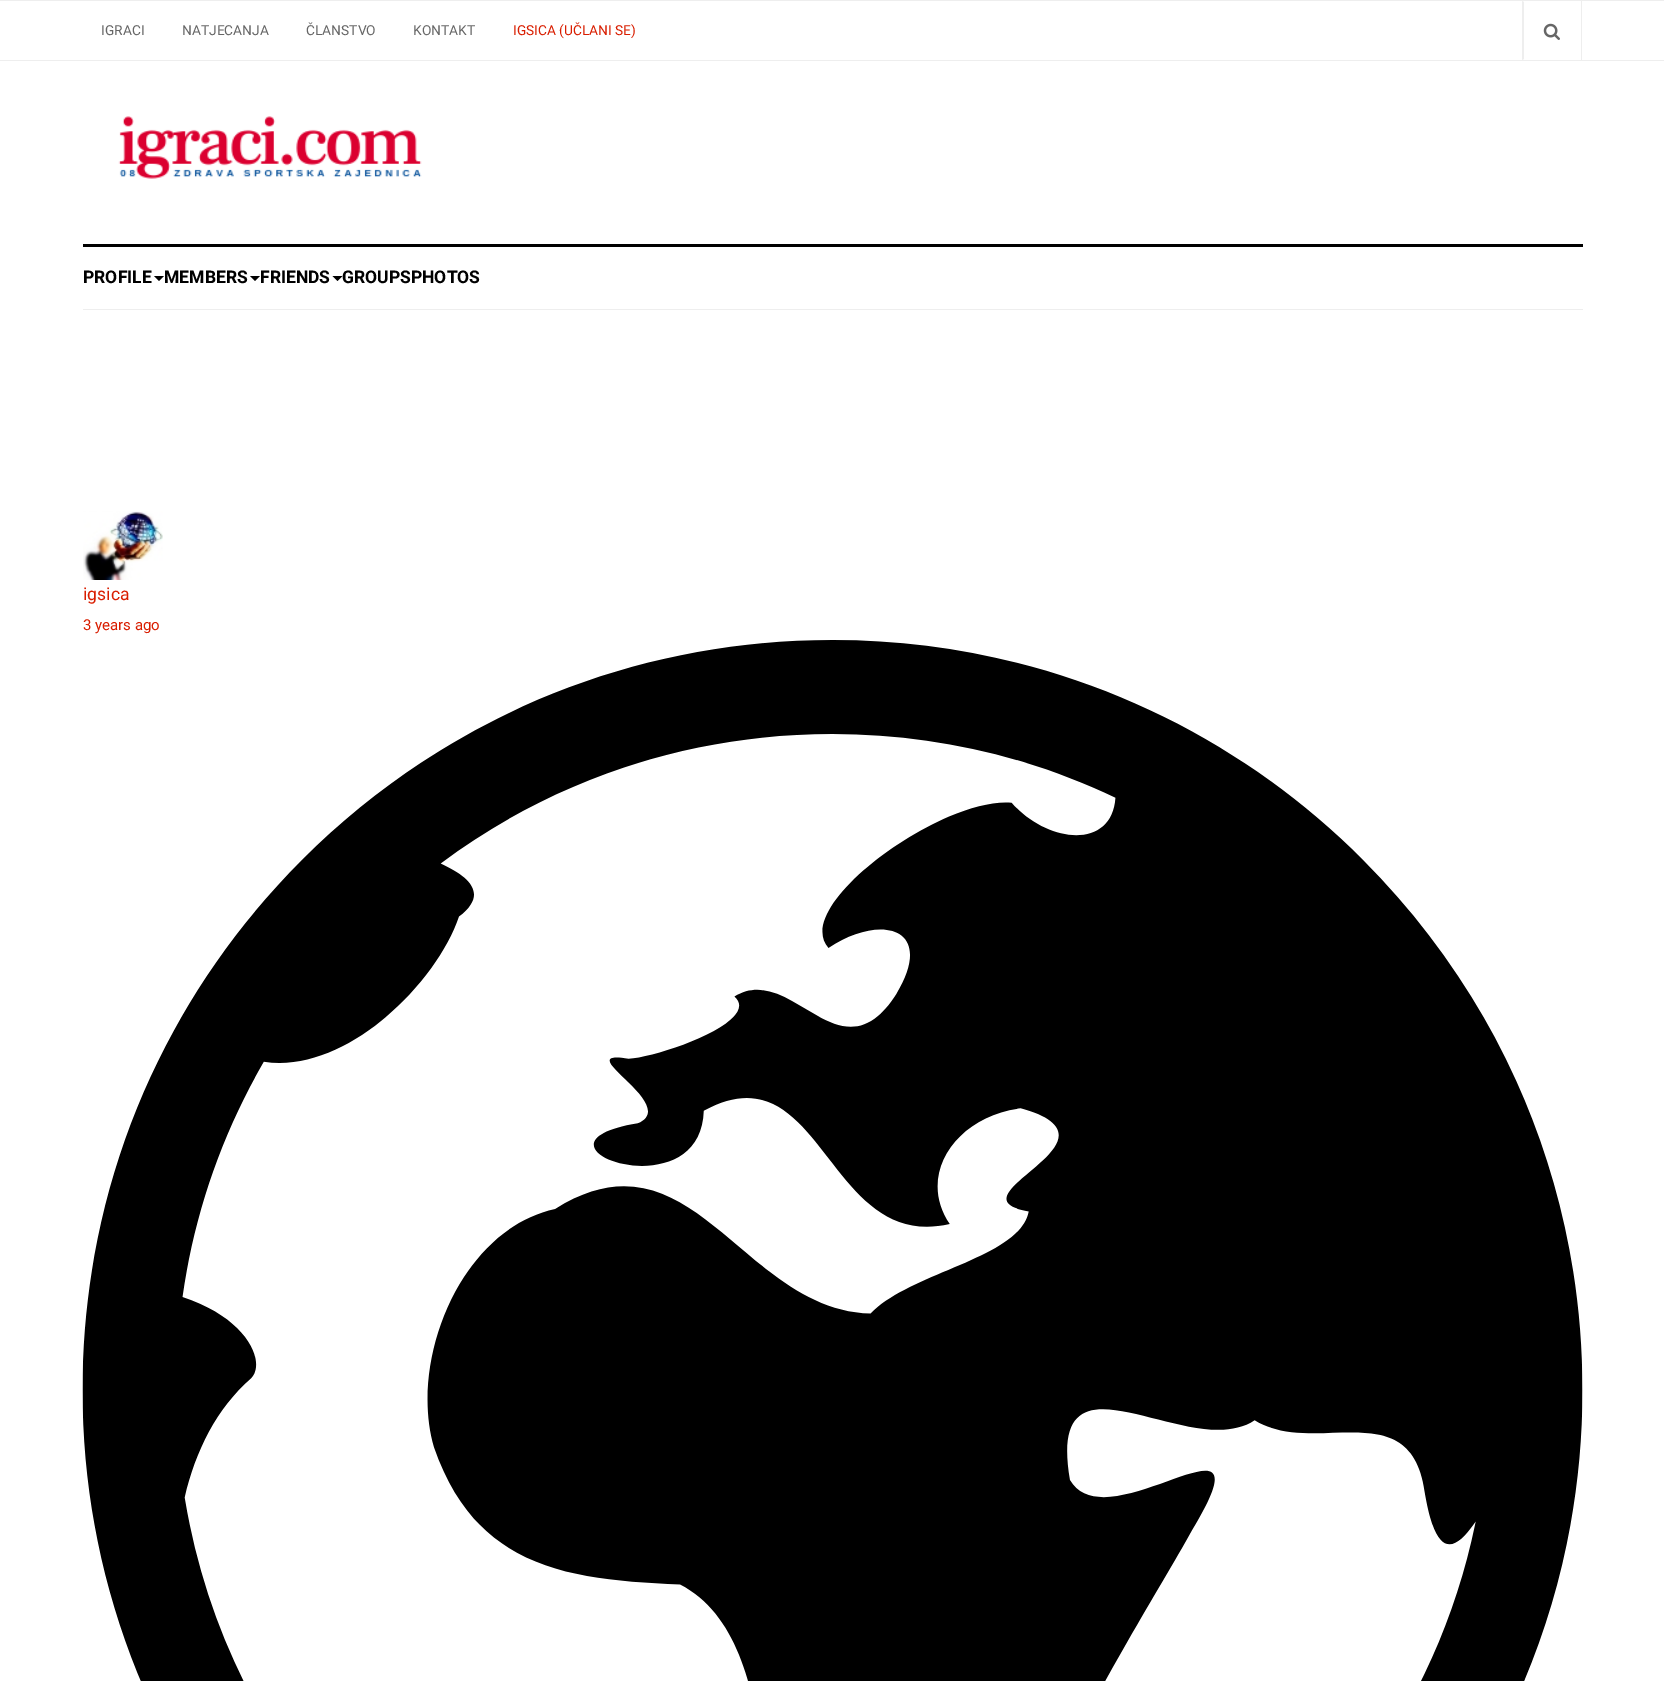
%!PS
<< /PageSize [1664 1681] >> setpagedevice
/m/moveto load def
/l/rlineto load def
/z/closepath load def
/f/fill load def
/C { dup -16 bitshift 255 div exch dup -8 bitshift 255 and 255 div exch 255 and 255 div setrgbcolor } def
/F { [ exch dup neg 0 0 3 -1 roll 0 0 ] selectfont } def
/T { moveto show } def
/R { rectfill } def
/I { 5 dict begin { /h /w /y /x /name } { exch def } forall
  gsave x y translate w h scale
  w h 8 [w 0 0 h 0 0] name (r) file false 3 colorimage grestore end } def
0 1681 translate 1 -1 scale
4 setmiterlimit
16#FFFFFF C
0 0 1664 1681 R
16#EEEEEE C
0 0 1664 1 R
0 60 1664 1 R
/Heebo-Regular 13.75 F
16#666666 C
(IGRACI) 101 35 T
(NATJECANJA) 182 35 T
(ČLANSTVO) 306 35 T
(KONTAKT) 413 35 T
16#D91D00 C
(IGSICA \(UČLANI SE\)) 513 35 T
16#EEEEEE C
1581 1 1 59 R
1522 60 m 0 -59 l 2 1 l 0 57 l z f
(1.rgb) 1543 23 17 17 I
(2.rgb) 118 116 304 63 I
16#000000 C
83 244 1500 3 R
16#EEEEEE C
83 309 1500 1 R
/Heebo-Bold 17.5 F
16#000000 C
(PROFILE) 83 283 T
154 276 m 10 0 l -5 5 l z f
(MEMBERS) 164 283 T
250 276 m 10 0 l -5 5 l z f
(FRIENDS) 260 283 T
332.5 276 m 10 0 l -5 5 l z f
(GROUPSPHOTOS) 342 283 T
(3.rgb) 83 511 80 69 I
/Heebo-Regular 17.5 F
16#D91D00 C
(igsica) 83 600 T
/Heebo-Regular 15 F
(3 years ago) 83 630 T
(4.rgb) 82 640 1501 1041 I
showpage
